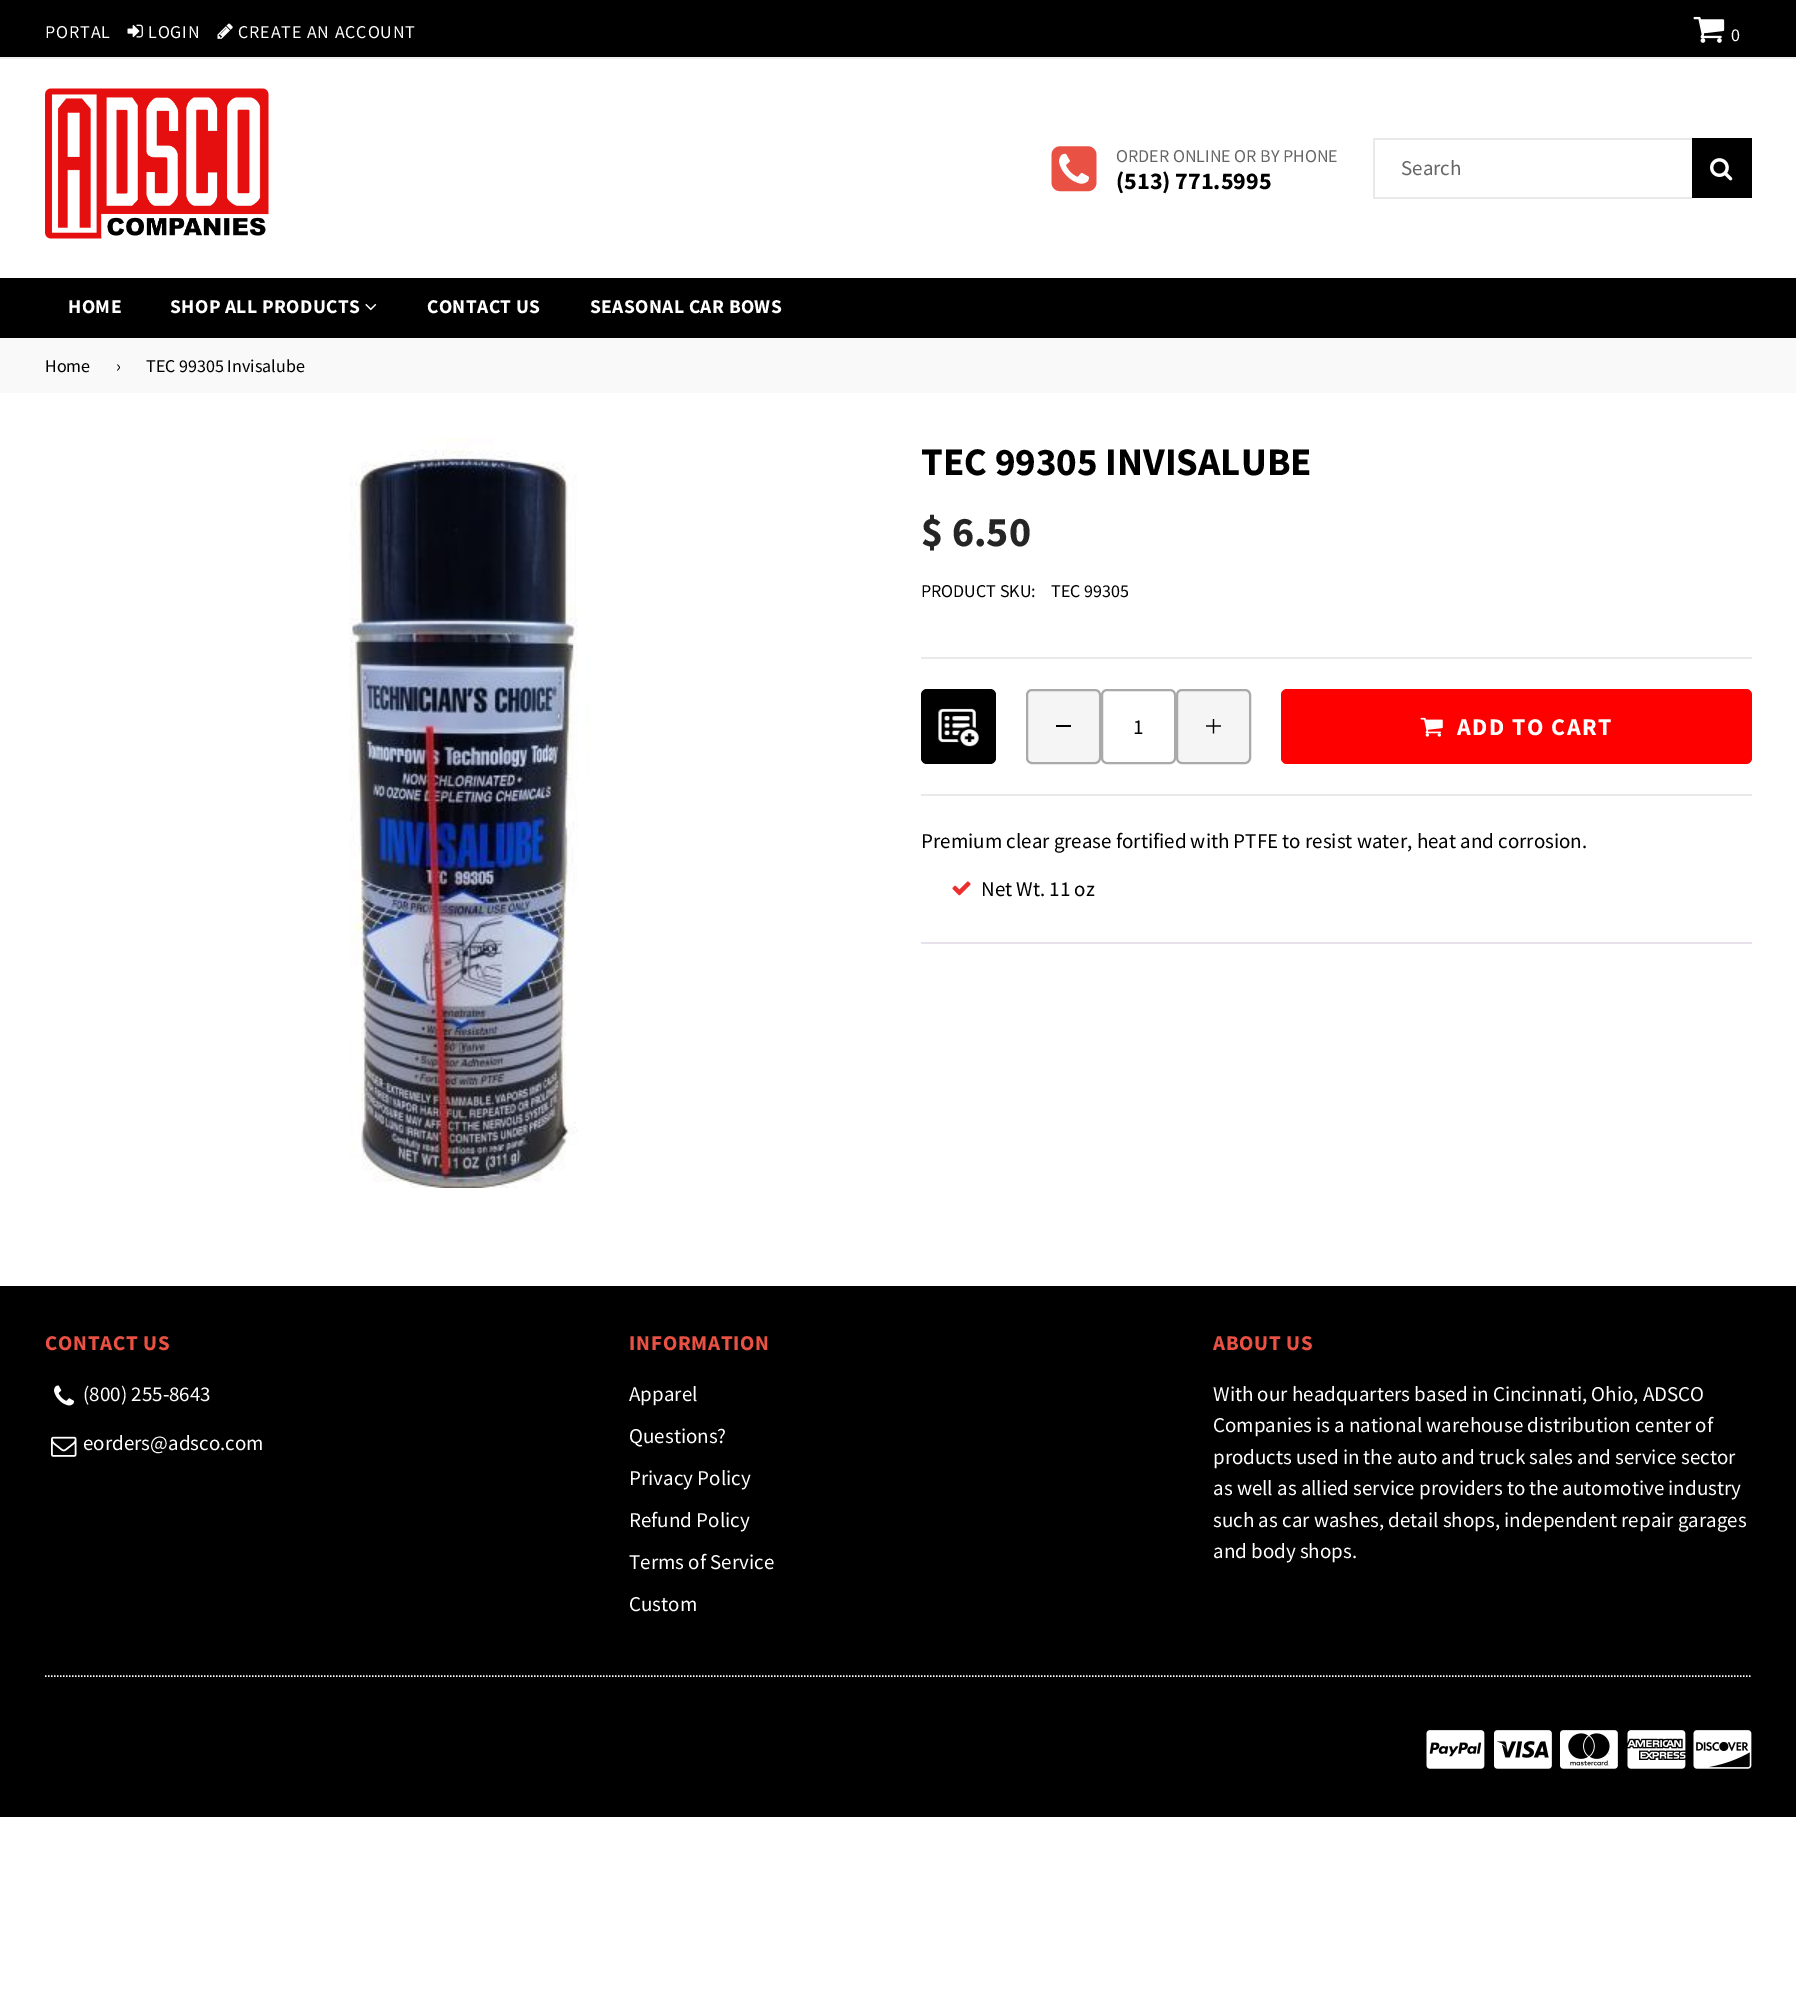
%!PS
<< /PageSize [1796 2012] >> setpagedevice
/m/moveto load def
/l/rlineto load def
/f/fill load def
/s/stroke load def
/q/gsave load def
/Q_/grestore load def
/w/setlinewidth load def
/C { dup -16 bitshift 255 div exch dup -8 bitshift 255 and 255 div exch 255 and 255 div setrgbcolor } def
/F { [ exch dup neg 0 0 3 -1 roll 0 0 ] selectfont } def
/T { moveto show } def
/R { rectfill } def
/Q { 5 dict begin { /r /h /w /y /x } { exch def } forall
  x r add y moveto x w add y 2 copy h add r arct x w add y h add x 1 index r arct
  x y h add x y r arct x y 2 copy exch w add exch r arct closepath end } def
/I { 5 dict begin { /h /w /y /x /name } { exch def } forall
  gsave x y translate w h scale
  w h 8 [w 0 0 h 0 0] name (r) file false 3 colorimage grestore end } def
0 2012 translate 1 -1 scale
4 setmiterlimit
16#FFFFFF C
0 0 1796 2012 R
16#000000 C
0 0 1796 57 R
16#EEEEEE C
0 57 1796 2 R
/SourceSansPro-Regular 18 F
16#FFFFFF C
45 38 m .9 0 (PORTAL) ashow
(1.rgb) 127 24 16 14 I
148 38 m .9 0 (LOGIN) ashow
(2.rgb) 217 23 16 16 I
238 38 m .9 0 (CREATE AN ACCOUNT) ashow
(3.rgb) 1693 16 32 27 I
1731 41 m 2 0 (0) ashow
(4.rgb) 45 88 224 151 I
(5.rgb) 1051 146 46 46 I
16#666666 C
(ORDER ONLINE OR BY PHONE) 1116 162 T
/SourceSansPro-Bold 24 F
16#000000 C
(\(513\) 771.5995) 1116 189 T
16#E8E9EB C
1373 138 319 2 R
1373 197 319 2 R
1373 138 2 60 R
/SourceSansPro-Regular 21 F
16#666666 C
(Search) 1401 175 T
16#000000 C
1692 138 60 60 R
(6.rgb) 1710 158 23 23 I
0 278 1796 60 R
/SourceSansPro-Bold 19.5 F
16#FFFFFF C
68 313 m .4 0 (HOME) ashow
170 313 m .4 0 (SHOP ALL PRODUCTS) ashow
(7.rgb) 365 303 12 8 I
427 313 m .4 0 (CONTACT US) ashow
590 313 m .4 0 (SEASONAL CAR BOWS) ashow
16#F9F9F9 C
0 338 1796 55 R
/SourceSansPro-Regular 18 F
16#000000 C
(Home) 45 372 T
(›) 116 372 T
(TEC 99305 Invisalube) 146 372 T
(8.rgb) 349 438 240 750 I
/SourceSansPro-Bold 39 F
(TEC 99305 INVISALUBE) 921 475 T
/SourceSansPro-Bold 42 F
16#252525 C
($ 6.50) 921 546 T
/SourceSansPro-Regular 18 F
16#000000 C
(PRODUCT SKU:) 921 597 T
(TEC 99305) 1051 597 T
16#E8E9EB C
921 657 831 2 R
16#000000 C
921 689 75 75 6 Q f
(9.rgb) 938 708 41 39 I
16#F5F5F5 C
1027 690 73 73 5 Q q f Q_
16#AAAAAA C
2 w
s
16#000000 C
1056 725 15 2 R
16#AAAAAA C
1102 690 73 73 5 Q s
/SourceSansPro-Regular 21 F
16#000000 C
(1) 1133 734 T
16#F5F5F5 C
1177 690 73 73 5 Q q f Q_
16#AAAAAA C
s
(10.rgb) 1206 719 15 15 I
16#FF0000 C
1281 689 471 75 6 Q f
(11.rgb) 1420 717 23 20 I
/SourceSansPro-Bold 24 F
16#FFFFFF C
1457 735 m 1.5 0 (ADD TO CART) ashow
16#E8E9EB C
921 794 831 2 R
16#E8E0EB C
921 942 831 2 R
/SourceSansPro-Regular 21 F
16#000000 C
(Premium clear grease fortified with PTFE to resist water, heat and corrosion.) 921 848 T
(12.rgb) 952 881 19 15 I
(Net Wt. 11 oz) 981 896 T
0 1286 1796 531 R
/SourceSansPro-Bold 21 F
16#E95144 C
45 1350 m .75 0 (CONTACT US) ashow
(13.rgb) 54 1385 20 21 I
/SourceSansPro-Regular 21 F
16#FFFFFF C
(\(800\) 255-8643) 83 1401 T
(14.rgb) 51 1436 26 21 I
(eorders@adsco.com) 83 1450 T
/SourceSansPro-Bold 21 F
16#E95144 C
629 1350 m .75 0 (INFORMATION) ashow
/SourceSansPro-Regular 21 F
16#FFFFFF C
(Apparel) 629 1401 T
(Questions?) 629 1443 T
(Privacy Policy) 629 1485 T
(Refund Policy) 629 1527 T
(Terms of Service) 629 1569 T
(Custom) 629 1611 T
/SourceSansPro-Bold 21 F
16#E95144 C
1213 1350 m .75 0 (ABOUT US) ashow
/SourceSansPro-Regular 21 F
16#FFFFFF C
(With our headquarters based in Cincinnati, Ohio, ADSCO) 1213 1401 T
(Companies is a national warehouse distribution center of) 1213 1432 T
(products used in the auto and truck sales and service sector) 1213 1464 T
(as well as allied service providers to the automotive industry) 1213 1495 T
(such as car washes, detail shops, independent repair garages) 1213 1527 T
(and body shops.) 1213 1558 T
1.5 w
[1.5 1.5] 0 setdash
45 1676 m 1707 0 l s
(15.rgb) 1426 1730 59 39 I
(16.rgb) 1494 1730 58 39 I
(17.rgb) 1560 1730 58 39 I
(18.rgb) 1627 1730 59 39 I
(19.rgb) 1693 1730 59 39 I
showpage
